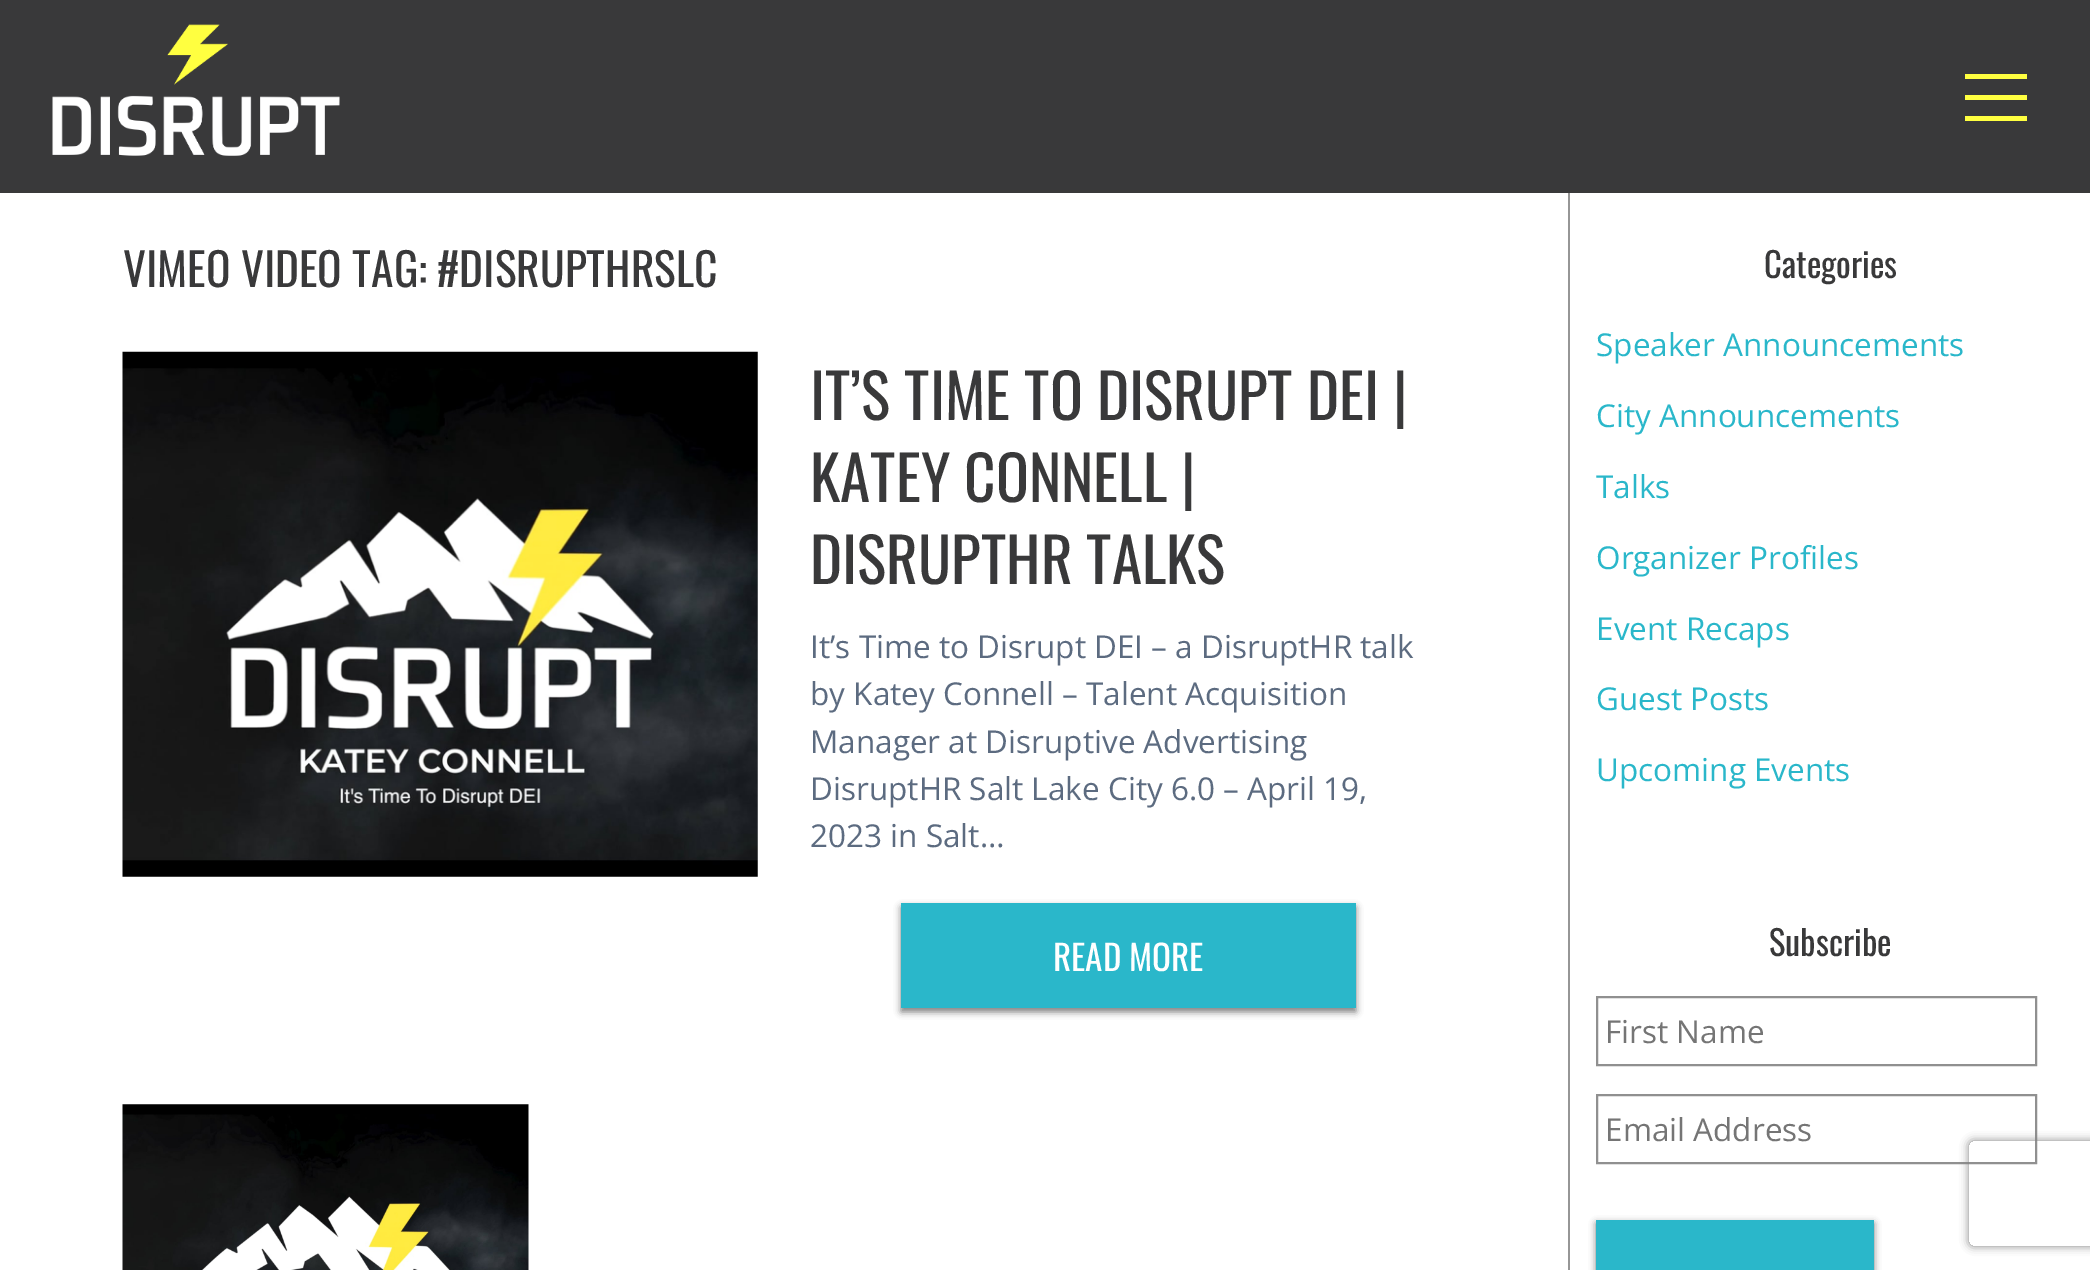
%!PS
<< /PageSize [2090 1270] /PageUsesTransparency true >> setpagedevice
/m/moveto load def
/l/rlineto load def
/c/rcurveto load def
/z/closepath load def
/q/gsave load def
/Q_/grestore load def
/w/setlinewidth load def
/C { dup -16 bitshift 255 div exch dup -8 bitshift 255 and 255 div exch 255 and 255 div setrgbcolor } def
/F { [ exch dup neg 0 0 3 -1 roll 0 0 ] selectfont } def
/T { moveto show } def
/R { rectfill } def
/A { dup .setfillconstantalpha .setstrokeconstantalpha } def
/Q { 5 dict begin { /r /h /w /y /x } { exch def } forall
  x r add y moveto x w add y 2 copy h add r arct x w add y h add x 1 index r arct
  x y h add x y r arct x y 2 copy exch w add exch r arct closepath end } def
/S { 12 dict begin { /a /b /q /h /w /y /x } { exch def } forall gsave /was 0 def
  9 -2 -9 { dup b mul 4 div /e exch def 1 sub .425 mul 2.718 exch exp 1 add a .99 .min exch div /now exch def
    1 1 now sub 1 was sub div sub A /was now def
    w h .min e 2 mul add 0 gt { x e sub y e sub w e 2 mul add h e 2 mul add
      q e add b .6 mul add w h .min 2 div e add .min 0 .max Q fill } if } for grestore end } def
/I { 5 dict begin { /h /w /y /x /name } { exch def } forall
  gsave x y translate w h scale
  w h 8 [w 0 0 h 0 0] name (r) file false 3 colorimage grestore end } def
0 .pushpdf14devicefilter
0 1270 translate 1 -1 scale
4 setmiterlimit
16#FFFFFF C
0 0 2090 1270 R
16#39393A C
0 0 2090 193 R
(1.rgb) 52 24 288 132 I
16#FFFF40 C
1965 95 62 5 R
1965 74 62 5 R
1965 116 62 5 R
/Oswald-Regular 45.5 F
16#39393A C
(VIMEO VIDEO TAG: #DISRUPTHRSLC) 123 287 T
(2.rgb) 122 351 636 526 I
/Oswald-Regular 61.25 F
(IT’S TIME TO DISRUPT DEI |) 810 420 T
(KATEY CONNELL |) 810 502 T
(DISRUPTHR TALKS) 810 584 T
/OpenSans-Regular 31.5 F
16#5C6B80 C
(It’s Time to Disrupt DEI – a DisruptHR talk) 810 658 T
(by Katey Connell – Talent Acquisition) 810 705 T
(Manager at Disruptive Advertising) 810 753 T
(DisruptHR Salt Lake City 6.0 – April 19,) 810 800 T
(2023 in Salt…) 810 847 T
16#000000 C
901 907 455 105 0 3.5 .5 S
16#2AB7CA C
901 903 455 105 R
/Oswald-Regular 35 F
16#FFFFFF C
(READ MORE) 1053 971 T
(3.rgb) 122 1104 407 166 I
16#969696 C
1568 193 2 1077 R
/Oswald-Regular 34.5 F
16#39393A C
(Categories) 1764 278 T
/OpenSans-Regular 31.5 F
16#2AB7CA C
(Speaker Announcements) 1596 356 T
(City Announcements) 1596 427 T
(Talks) 1596 498 T
(Organizer Profiles) 1596 569 T
(Event Recaps) 1596 640 T
(Guest Posts) 1596 710 T
(Upcoming Events) 1596 781 T
/Oswald-Regular 34.5 F
16#39393A C
(Subscribe) 1769 956 T
16#909090 C
2 w
1597 997 439 68 rectstroke
/OpenSans-Regular 31.5 F
16#757575 C
(First Name) 1605 1043 T
16#909090 C
1597 1095 439 68 rectstroke
16#757575 C
(Email Address) 1605 1141 T
q
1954 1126 m 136 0 l 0 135 l -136 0 l z 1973 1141 m 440 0 l 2 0 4 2 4 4 c 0 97 l 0 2 -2 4 -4 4 c -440 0 l -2 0 -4 -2 -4 -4 c 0 -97 l 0 -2 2 -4 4 -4 c z eoclip newpath
16#808080 C
1969 1141 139 105 4 4.5 1 S
Q_
16#000000 C
1596 1223 278 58 0 3.5 .5 S
16#2AB7CA C
1596 1220 278 50 R
.poppdf14devicefilter showpage
